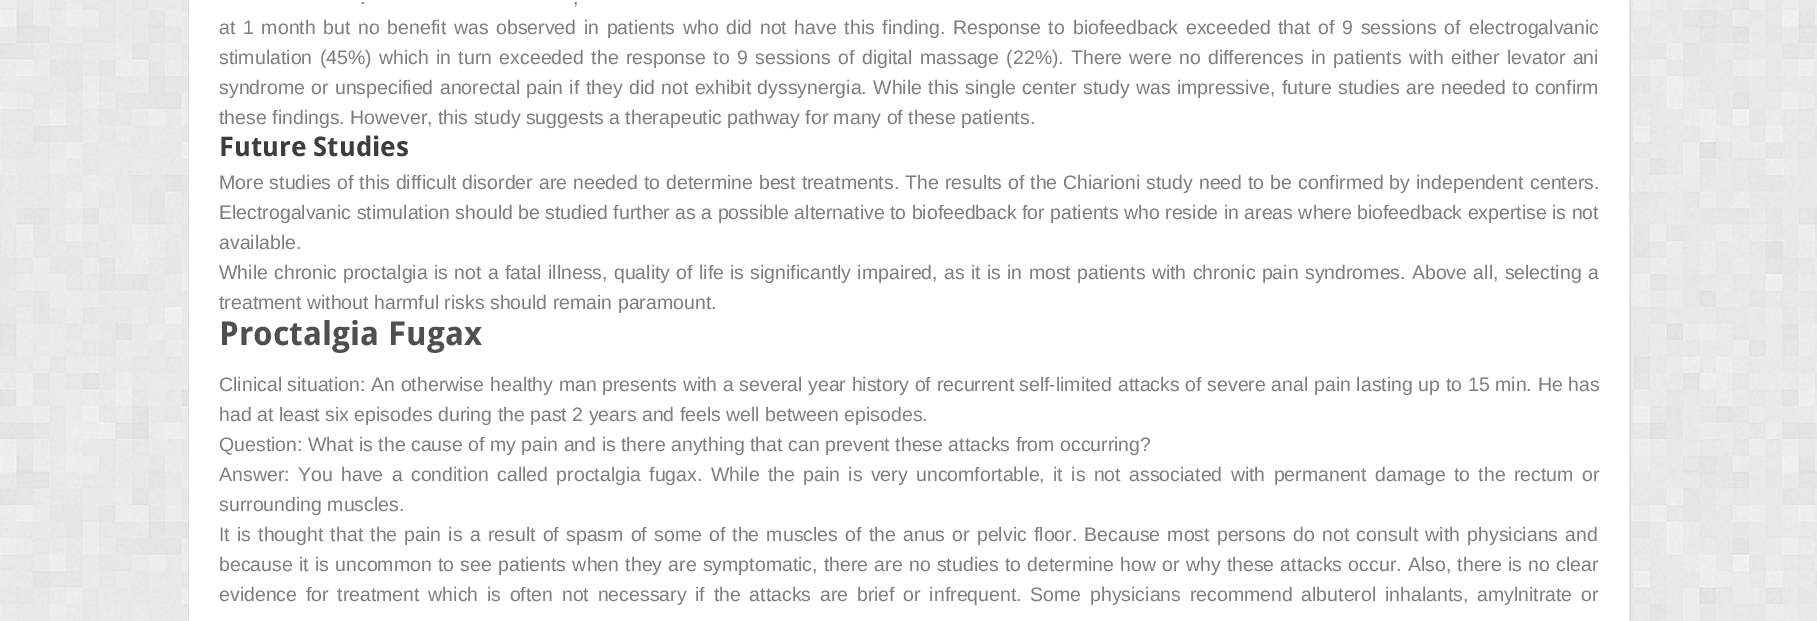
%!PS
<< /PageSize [1817 621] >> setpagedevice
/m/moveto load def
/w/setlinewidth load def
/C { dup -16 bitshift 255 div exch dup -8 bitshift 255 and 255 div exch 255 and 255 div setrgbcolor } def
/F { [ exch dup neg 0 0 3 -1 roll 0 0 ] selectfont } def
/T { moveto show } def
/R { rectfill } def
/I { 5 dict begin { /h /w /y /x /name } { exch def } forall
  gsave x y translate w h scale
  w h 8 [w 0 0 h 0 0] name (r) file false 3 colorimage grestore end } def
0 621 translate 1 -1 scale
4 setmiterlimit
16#FFFFFF C
0 0 1817 621 R
(1.rgb) 0 0 1817 621 I
16#DDDDDD C
2 w
189 -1 1441 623 rectstroke
16#FFFFFF C
189 0 1440 621 R
/LiberationSans-Regular 19.5 F
16#7F7E7E C
(.) 360 4 T
(,) 573 4 T
219 34 m 2.25 0 32 (at 1 month but no benefit was observed in patients who did not have this finding. Response to) widthshow
1073 34 m 2.25 0 32 (biofeedback exceeded that of 9 sessions of) widthshow
(electrogalvanic) 1469 34 T
219 64 m 1.9 0 32 (stimulation \(45%\) which in turn exceeded the response to 9 sessions of digital massage \(22%\). There were no differences in patients with either levator ani) widthshow
219 94 m .95 0 32 (syndrome or unspecified anorectal pain if they did not exhibit dyssynergia. While this single center study was impressive, future studies are needed to confirm) widthshow
(these findings. However, this study suggests a therapeutic pathway for many of these patients.) 219 124 T
/DroidSans-Bold 27 F
16#3D3D3D C
(Future Studies) 219 156 T
/LiberationSans-Regular 19.5 F
16#7F7E7E C
219 189 m .55 0 32 (More studies of this difficult disorder are needed to determine best treatments. The results of the Chiarioni study need to be confirmed by independent) widthshow
(centers.) 1530 189 T
(Electrogalvanic stimulation should be studied further as a possible alternative to biofeedback for patients who reside in areas where biofeedback expertise is not) 219 219 T
(available.) 219 249 T
219 279 m .85 0 32 (While chronic proctalgia is not a fatal illness, quality of life is significantly impaired, as it is in most patients with chronic pain syndromes. Above all, selecting a) widthshow
(treatment without harmful risks should remain paramount.) 219 309 T
/DroidSans-Bold 33 F
16#4F4F4F C
(Proctalgia Fugax) 219 345 T
/LiberationSans-Regular 19.5 F
16#7F7E7E C
(Clinical situation) 219 391 T
360 391 m .25 0 32 (: An otherwise) widthshow
490 391 m .25 0 32 (healthy man presents with a several year history of recurrent) widthshow
1019 391 m .25 0 32 (self-limited attacks of severe anal pain lasting up to 15 min. He has) widthshow
(had at least six episodes during the past 2 years and feels well between episodes.) 219 421 T
(Question: What is the cause of my pain and is there anything that can prevent these attacks from occurring?) 219 451 T
(Answer:) 219 481 T
298 481 m 2.9 0 32 (You have a condition called proctalgia fugax. While the pain is very uncomfortable, it is not associated with permanent damage to the rectum or) widthshow
(surrounding muscles.) 219 511 T
219 541 m 1.75 0 32 (It is thought that the pain is a result of spasm of some of the muscles of the anus or pelvic floor. Because most persons do not consult with physicians and) widthshow
219 571 m .8 0 32 (because it is uncommon to see patients when they are symptomatic, there are no studies to determine how or why these attacks occur. Also, there is no clear) widthshow
219 601 m 3.3 0 32 (evidence for treatment which is often not necessary if the attacks are brief or infrequent. Some physicians recommend albuterol inhalants, amylnitrate or) widthshow
showpage
